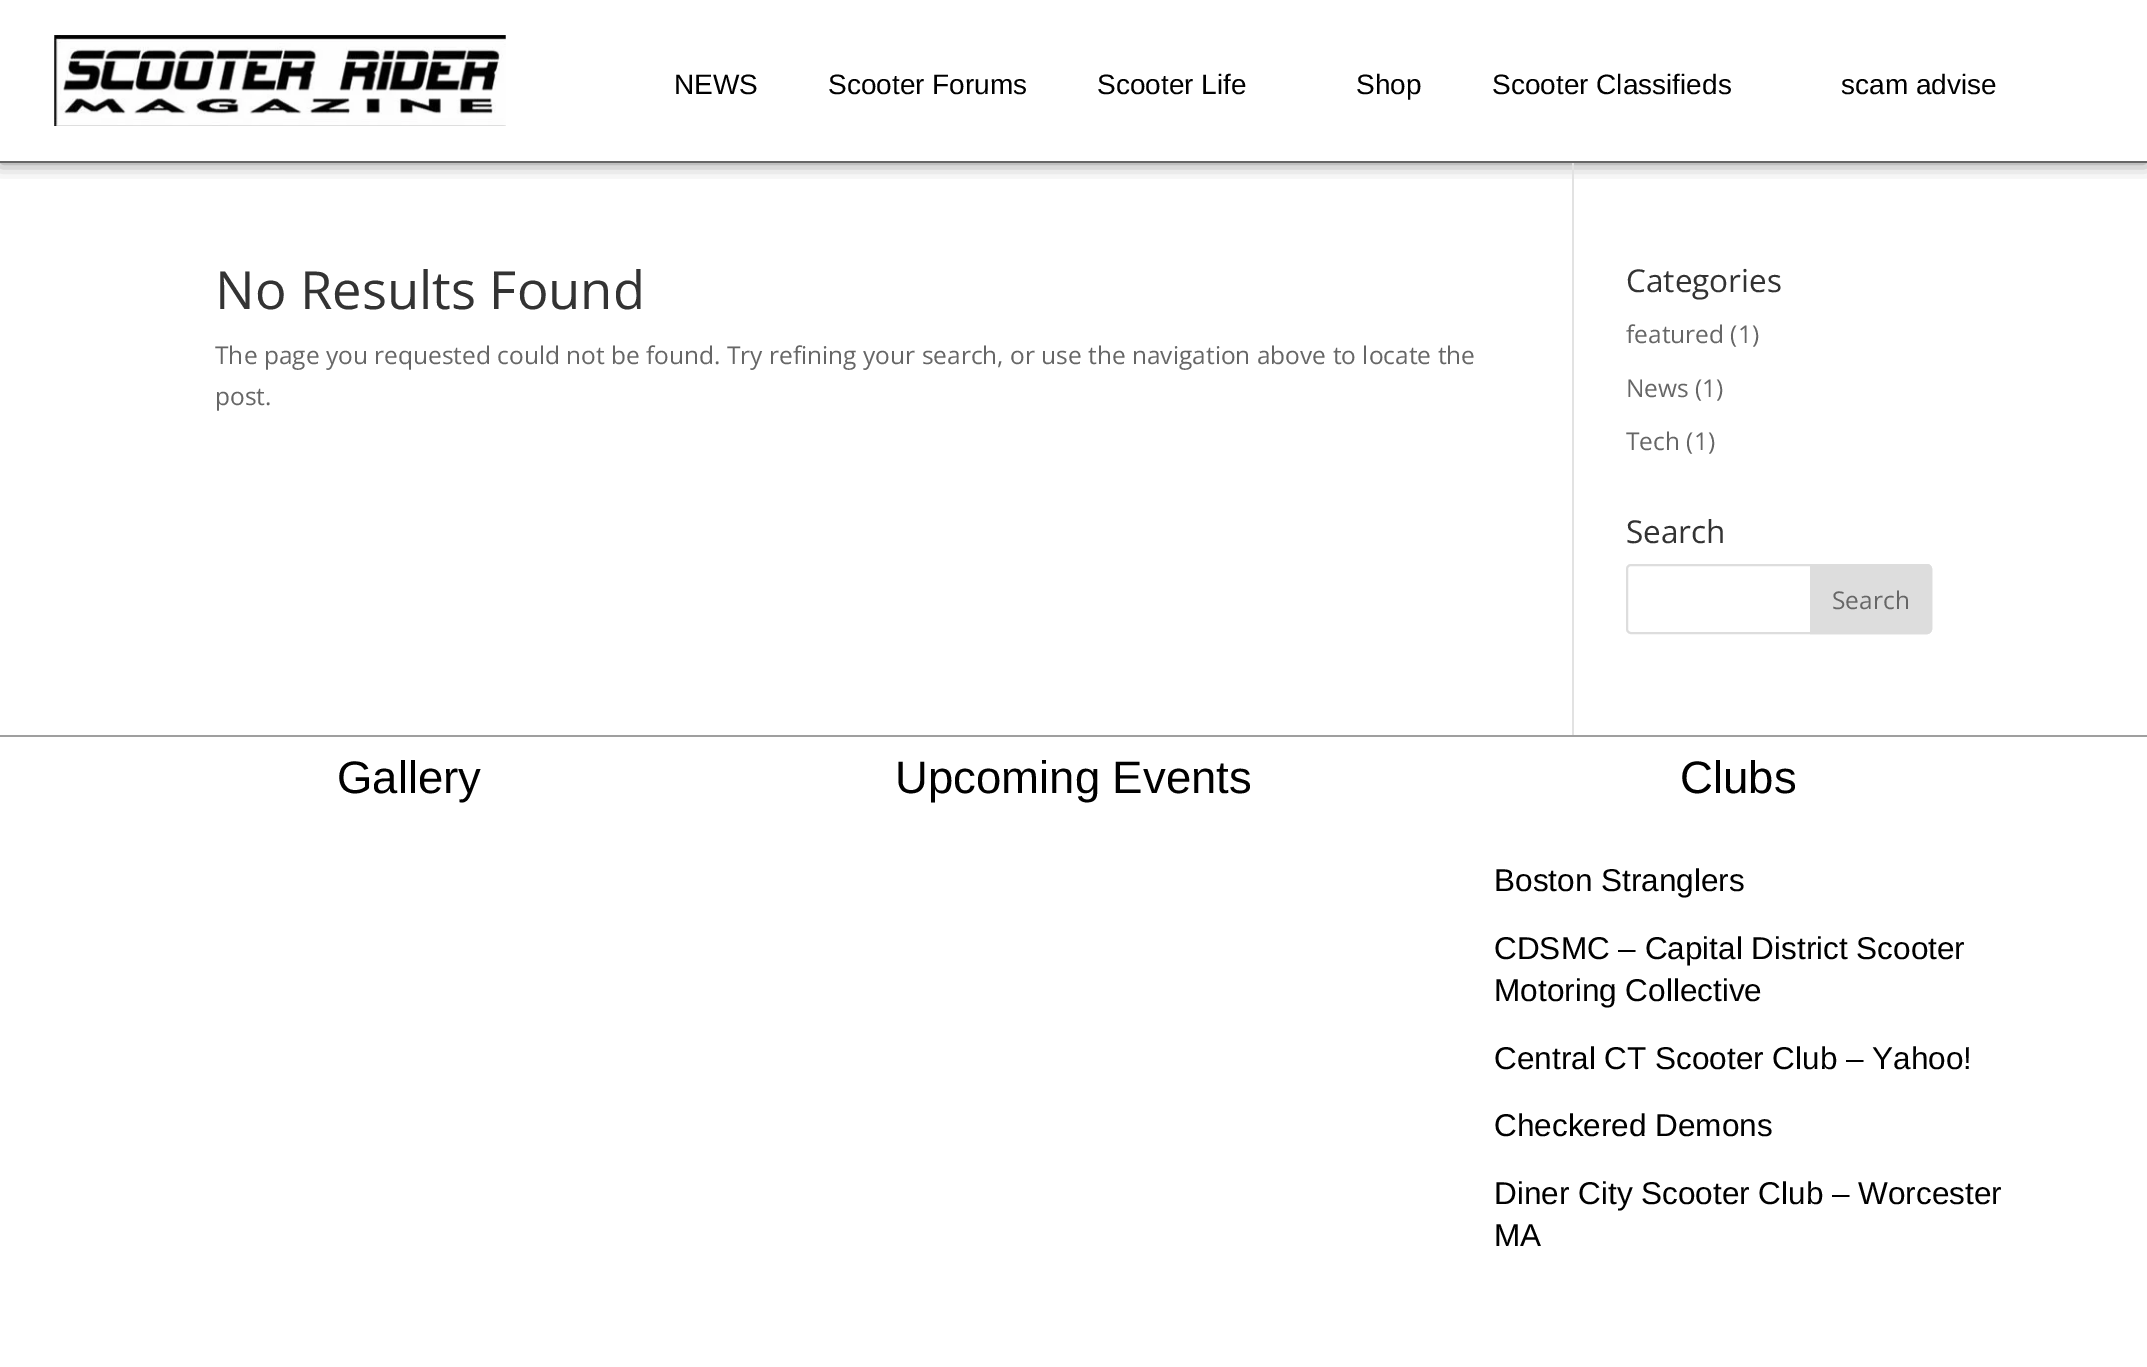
%!PS
<< /PageSize [2147 1367] /PageUsesTransparency true >> setpagedevice
/m/moveto load def
/l/rlineto load def
/c/rcurveto load def
/z/closepath load def
/f/fill load def
/s/stroke load def
/q/gsave load def
/Q_/grestore load def
/w/setlinewidth load def
/C { dup -16 bitshift 255 div exch dup -8 bitshift 255 and 255 div exch 255 and 255 div setrgbcolor } def
/F { [ exch dup neg 0 0 3 -1 roll 0 0 ] selectfont } def
/T { moveto show } def
/R { rectfill } def
/A { dup .setfillconstantalpha .setstrokeconstantalpha } def
/Q { 5 dict begin { /r /h /w /y /x } { exch def } forall
  x r add y moveto x w add y 2 copy h add r arct x w add y h add x 1 index r arct
  x y h add x y r arct x y 2 copy exch w add exch r arct closepath end } def
/S { 12 dict begin { /a /b /q /h /w /y /x } { exch def } forall gsave /was 0 def
  9 -2 -9 { dup b mul 4 div /e exch def 1 sub .425 mul 2.718 exch exp 1 add a .99 .min exch div /now exch def
    1 1 now sub 1 was sub div sub A /was now def
    w h .min e 2 mul add 0 gt { x e sub y e sub w e 2 mul add h e 2 mul add
      q e add b .6 mul add w h .min 2 div e add .min 0 .max Q fill } if } for grestore end } def
/I { 5 dict begin { /h /w /y /x /name } { exch def } forall
  gsave x y translate w h scale
  w h 8 [w 0 0 h 0 0] name (r) file false 3 colorimage grestore end } def
0 .pushpdf14devicefilter
0 1367 translate 1 -1 scale
4 setmiterlimit
16#FFFFFF C
0 0 2147 1367 R
q
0 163 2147 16 rectclip
16#000000 C
0 0 2147 163 0 9 .5 S
Q_
16#666666 C
0 161 2147 2 R
(1.rgb) 54 35 452 91 I
/LiberationSans-Regular 28 F
16#000000 C
(NEWS) 674 94 T
(Scooter Forums) 828 94 T
(Scooter Life) 1097 94 T
(Shop) 1356 94 T
(Scooter Classifieds) 1492 94 T
(scam advise) 1841 94 T
16#E2E2E2 C
1572 163 2 572 R
/OpenSans-Regular 52.5 F
16#333333 C
(No Results Found) 215 309 T
/OpenSans-Regular 24.5 F
16#666666 C
(The page you requested could not be found. Try refining your search, or use the navigation above to locate the) 215 364 T
(post.) 215 405 T
/OpenSans-Regular 31.5 F
16#333333 C
(Categories) 1626 292 T
/OpenSans-Regular 24.5 F
16#666666 C
(featured \(1\)) 1626 343 T
(News \(1\)) 1626 397 T
(Tech \(1\)) 1626 450 T
/OpenSans-Regular 31.5 F
16#333333 C
(Search) 1626 543 T
16#DDDDDD C
2 w
1627 565 304 68 4 Q s
1811 565 m 116 0 l 2 0 4 2 4 4 c 0 60 l 0 2 -2 4 -4 4 c -116 0 l z q f Q_
s
/OpenSans-Regular 24.5 F
16#666666 C
(Search) 1832 609 T
16#9F9F9F C
0 735 2147 2 R
/LiberationSans-Regular 45.5 F
16#000000 C
(Gallery) 337 793 T
(Upcoming Events) 895 793 T
(Clubs) 1680 793 T
/LiberationSans-Regular 31.5 F
(Boston Stranglers) 1494 891 T
(CDSMC – Capital District Scooter) 1494 959 T
(Motoring Collective) 1494 1001 T
(Central CT Scooter Club – Yahoo!) 1494 1069 T
(Checkered Demons) 1494 1136 T
(Diner City Scooter Club – Worcester) 1494 1204 T
(MA) 1494 1246 T
.poppdf14devicefilter showpage
